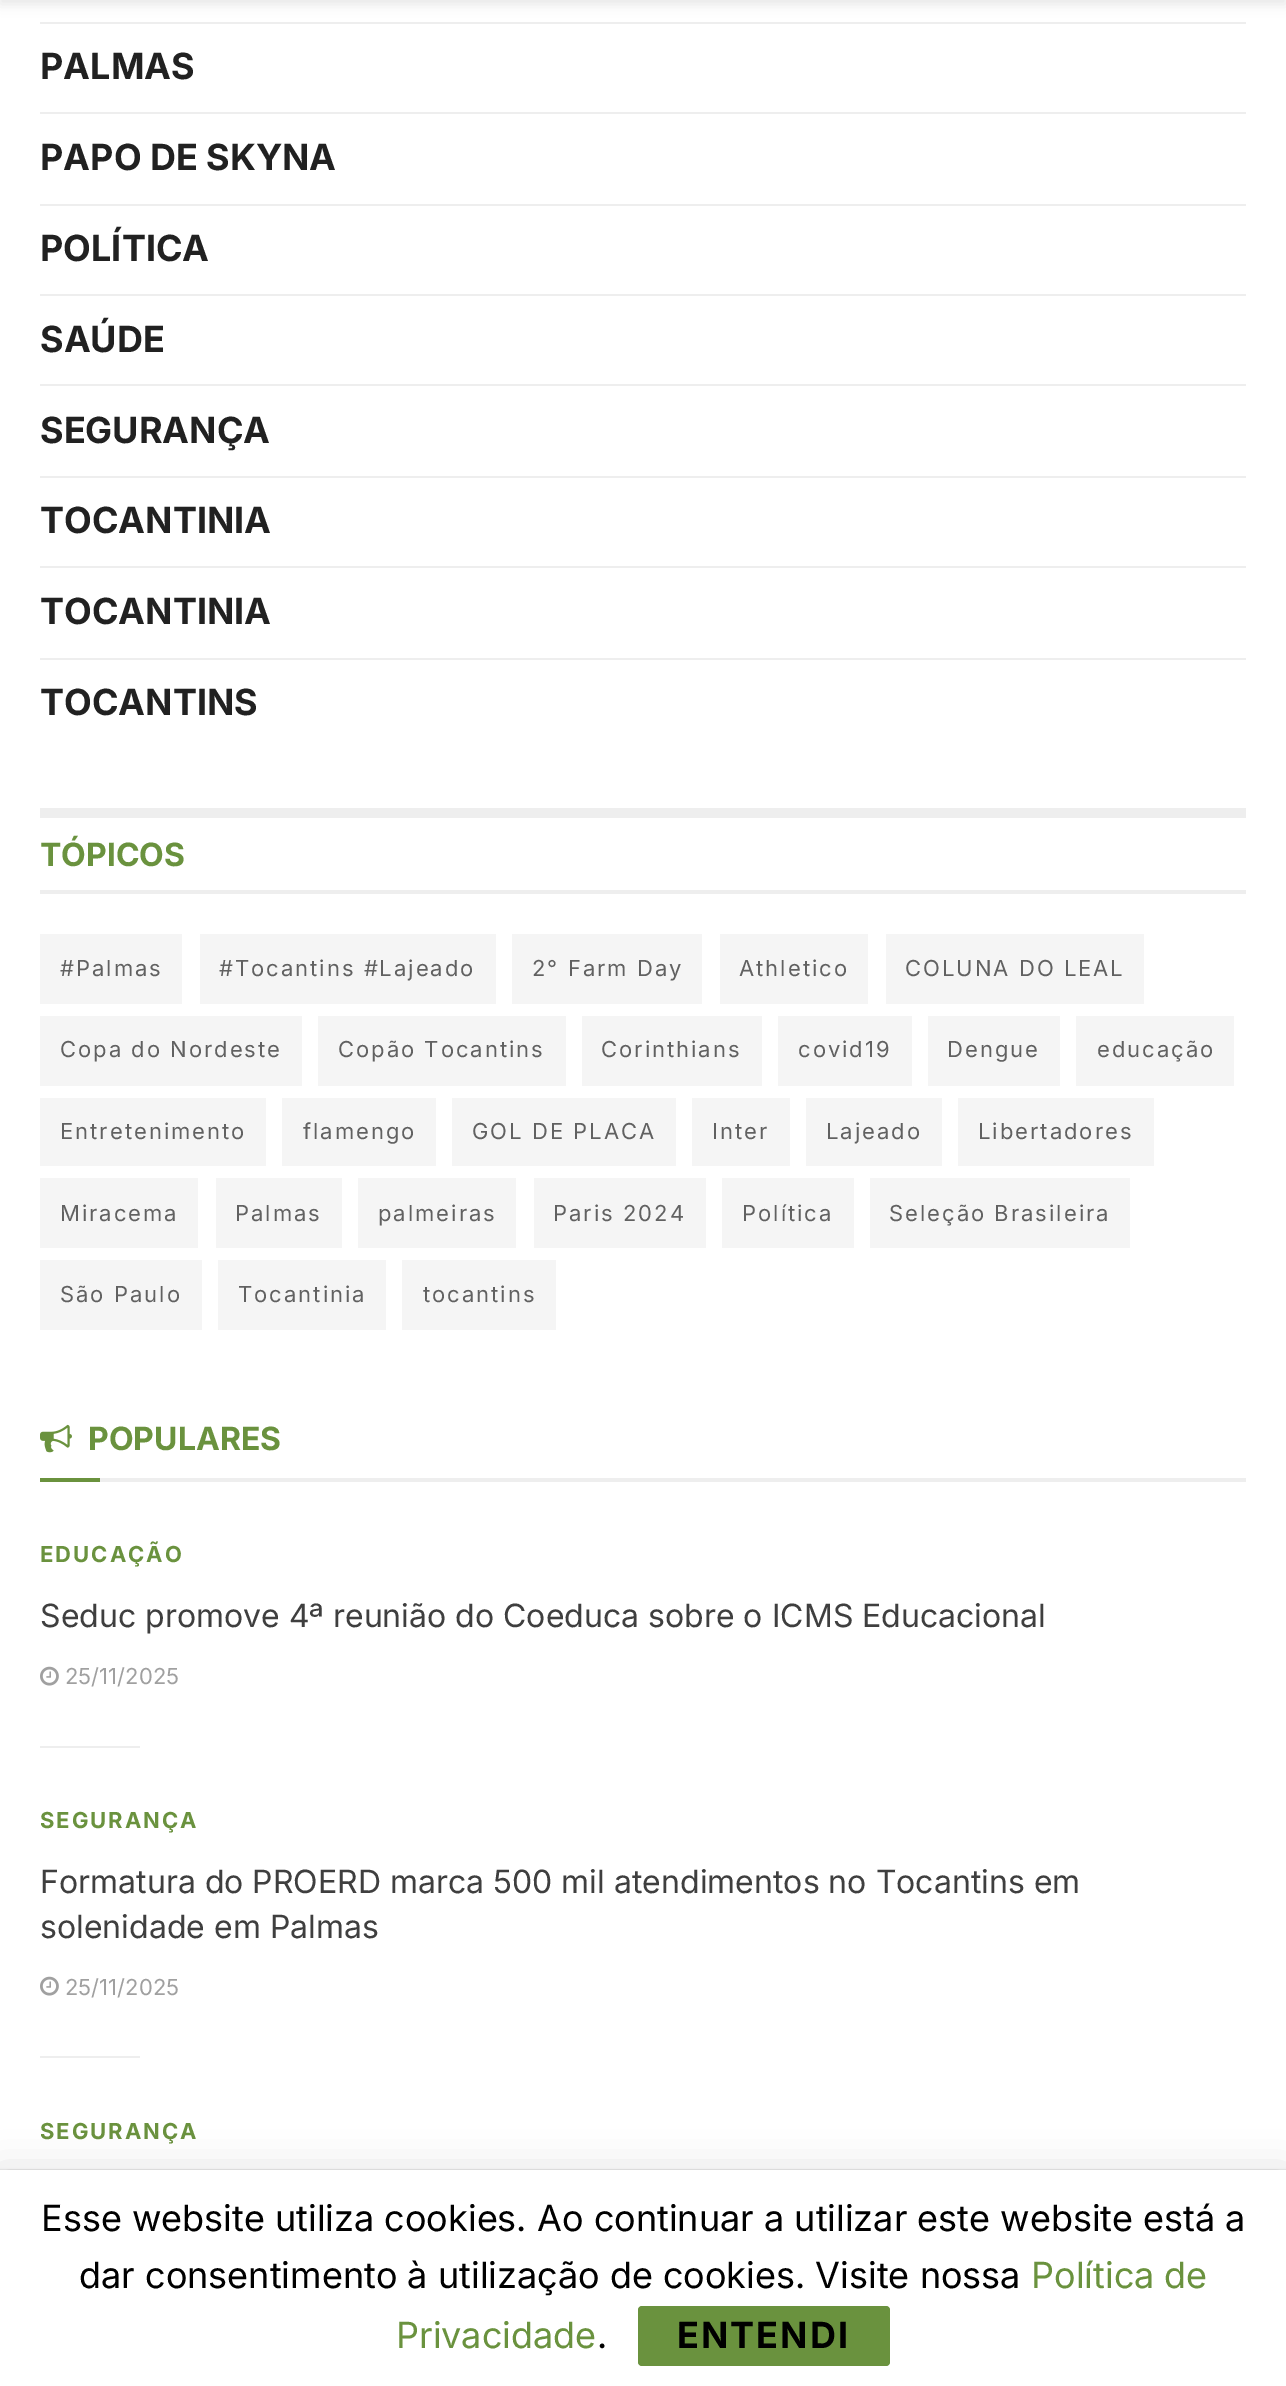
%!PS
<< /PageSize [1286 2386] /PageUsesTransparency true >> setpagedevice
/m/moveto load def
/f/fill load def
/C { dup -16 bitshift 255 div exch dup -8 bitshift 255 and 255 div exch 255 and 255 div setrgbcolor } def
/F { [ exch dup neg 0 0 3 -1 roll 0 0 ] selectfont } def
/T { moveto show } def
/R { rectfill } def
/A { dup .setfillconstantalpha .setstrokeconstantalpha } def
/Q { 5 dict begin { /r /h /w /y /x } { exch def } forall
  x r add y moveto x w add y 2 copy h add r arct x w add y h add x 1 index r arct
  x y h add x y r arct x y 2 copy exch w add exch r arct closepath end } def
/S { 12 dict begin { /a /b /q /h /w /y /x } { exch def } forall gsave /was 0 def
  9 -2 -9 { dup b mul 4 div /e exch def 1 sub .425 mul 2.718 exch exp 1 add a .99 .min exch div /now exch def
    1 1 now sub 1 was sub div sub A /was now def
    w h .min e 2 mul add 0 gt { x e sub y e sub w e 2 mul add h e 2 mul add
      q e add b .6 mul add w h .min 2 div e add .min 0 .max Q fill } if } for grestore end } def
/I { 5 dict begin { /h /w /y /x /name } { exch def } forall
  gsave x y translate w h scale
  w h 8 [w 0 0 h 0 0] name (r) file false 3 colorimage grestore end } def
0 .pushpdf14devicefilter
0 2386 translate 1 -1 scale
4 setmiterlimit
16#FFFFFF C
0 0 1286 2386 R
16#EEEEEE C
40 22 1206 2 R
16#000000 C
0 -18 1286 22 0 6 .1 S
/Inter-Bold 36 F
16#212121 C
(PALMAS) 40 79 T
16#EEEEEE C
40 112 1206 2 R
16#212121 C
(PAPO DE SKYNA) 40 170 T
16#EEEEEE C
40 204 1206 2 R
16#212121 C
(POLÍTICA) 40 261 T
16#EEEEEE C
40 294 1206 2 R
16#212121 C
(SAÚDE) 40 352 T
16#EEEEEE C
40 384 1206 2 R
16#212121 C
(SEGURANÇA) 40 443 T
16#EEEEEE C
40 476 1206 2 R
16#212121 C
(TOCANTINIA) 40 533 T
16#EEEEEE C
40 566 1206 2 R
16#212121 C
(TOCANTINIA) 40 624 T
16#EEEEEE C
40 658 1206 2 R
16#212121 C
(TOCANTINS) 40 715 T
16#EEEEEE C
40 808 1206 10 R
40 890 1206 4 R
/Inter-Bold 32 F
16#6A923E C
(TÓPICOS) 40 866 T
16#F5F5F5 C
40 934 142 70 R
/Inter-Regular 22 F
16#616161 C
60 976 m 2 0 (#Palmas) ashow
16#F5F5F5 C
200 934 296 70 R
16#616161 C
219 976 m 2 0 (#Tocantins #Lajeado) ashow
16#F5F5F5 C
512 934 190 70 R
16#616161 C
532 976 m 2 0 (2° Farm Day) ashow
16#F5F5F5 C
720 934 148 70 R
16#616161 C
739 976 m 2 0 (Athletico) ashow
16#F5F5F5 C
886 934 258 70 R
16#616161 C
905 976 m 2 0 (COLUNA DO LEAL) ashow
16#F5F5F5 C
40 1016 262 70 R
16#616161 C
60 1057 m 2 0 (Copa do Nordeste) ashow
16#F5F5F5 C
318 1016 248 70 R
16#616161 C
338 1057 m 2 0 (Copão Tocantins) ashow
16#F5F5F5 C
582 1016 180 70 R
16#616161 C
601 1057 m 2 0 (Corinthians) ashow
16#F5F5F5 C
778 1016 134 70 R
16#616161 C
798 1057 m 2 0 (covid19) ashow
16#F5F5F5 C
928 1016 132 70 R
16#616161 C
947 1057 m 2 0 (Dengue) ashow
16#F5F5F5 C
1076 1016 158 70 R
16#616161 C
1097 1057 m 2 0 (educação) ashow
16#F5F5F5 C
40 1098 226 68 R
16#616161 C
60 1139 m 2 0 (Entretenimento) ashow
16#F5F5F5 C
282 1098 154 68 R
16#616161 C
303 1139 m 2 0 (flamengo) ashow
16#F5F5F5 C
452 1098 224 68 R
16#616161 C
472 1139 m 2 0 (GOL DE PLACA) ashow
16#F5F5F5 C
692 1098 98 68 R
16#616161 C
712 1139 m 2 0 (Inter) ashow
16#F5F5F5 C
806 1098 136 68 R
16#616161 C
826 1139 m 2 0 (Lajeado) ashow
16#F5F5F5 C
958 1098 196 68 R
16#616161 C
978 1139 m 2 0 (Libertadores) ashow
16#F5F5F5 C
40 1178 158 70 R
16#616161 C
60 1221 m 2 0 (Miracema) ashow
16#F5F5F5 C
216 1178 126 70 R
16#616161 C
235 1221 m 2 0 (Palmas) ashow
16#F5F5F5 C
358 1178 158 70 R
16#616161 C
378 1221 m 2 0 (palmeiras) ashow
16#F5F5F5 C
534 1178 172 70 R
16#616161 C
553 1221 m 2 0 (Paris 2024) ashow
16#F5F5F5 C
722 1178 132 70 R
16#616161 C
742 1221 m 2 0 (Política) ashow
16#F5F5F5 C
870 1178 260 70 R
16#616161 C
889 1221 m 2 0 (Seleção Brasileira) ashow
16#F5F5F5 C
40 1260 162 70 R
16#616161 C
60 1302 m 2 0 (São Paulo) ashow
16#F5F5F5 C
218 1260 168 70 R
16#616161 C
238 1302 m 2 0 (Tocantinia) ashow
16#F5F5F5 C
402 1260 154 70 R
16#616161 C
423 1302 m 2 0 (tocantins) ashow
16#EEEEEE C
100 1478 1146 4 R
(1.rgb) 40 1424 32 29 I
/Inter-Bold 32 F
16#6A923E C
(POPULARES) 88 1450 T
40 1478 60 4 R
/Inter-Bold 22 F
40 1562 m 2 0 (EDUCAÇÃO) ashow
/Inter-Regular 32 F
16#3F3F3F C
(Seduc promove 4ª reunião do Coeduca sobre o ICMS Educacional) 40 1627 T
(2.rgb) 40 1666 19 20 I
/Inter-Regular 22 F
16#A0A0A0 C
(25/11/2025) 65 1684 T
16#EEEEEE C
40 1746 100 2 R
/Inter-Bold 22 F
16#6A923E C
40 1828 m 2 0 (SEGURANÇA) ashow
/Inter-Regular 32 F
16#3F3F3F C
(Formatura do PROERD marca 500 mil atendimentos no Tocantins em) 40 1893 T
(solenidade em Palmas) 40 1938 T
(2.rgb) 40 1976 19 20 I
/Inter-Regular 22 F
16#A0A0A0 C
(25/11/2025) 65 1995 T
16#EEEEEE C
40 2056 100 2 R
/Inter-Bold 22 F
16#6A923E C
40 2139 m 2 0 (SEGURANÇA) ashow
16#000000 C
0 2174 1286 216 0 20 .15 S
0 2170 1286 216 0 1 .2 S
16#FFFFFF C
0 2170 1286 216 R
/Inter-Regular 36 F
16#000000 C
(Esse website utiliza cookies. Ao continuar a utilizar este website está a) 41 2231 T
(dar consentimento à utilização de cookies. Visite nossa) 79 2288 T
16#6A923E C
(Política de) 1031 2288 T
(Privacidade) 396 2348 T
16#000000 C
(.) 597 2348 T
16#6A923E C
638 2306 252 60 4 Q f
/Inter-Bold 36 F
16#000000 C
677 2348 m 2 0 (ENTENDI) ashow
.poppdf14devicefilter showpage
